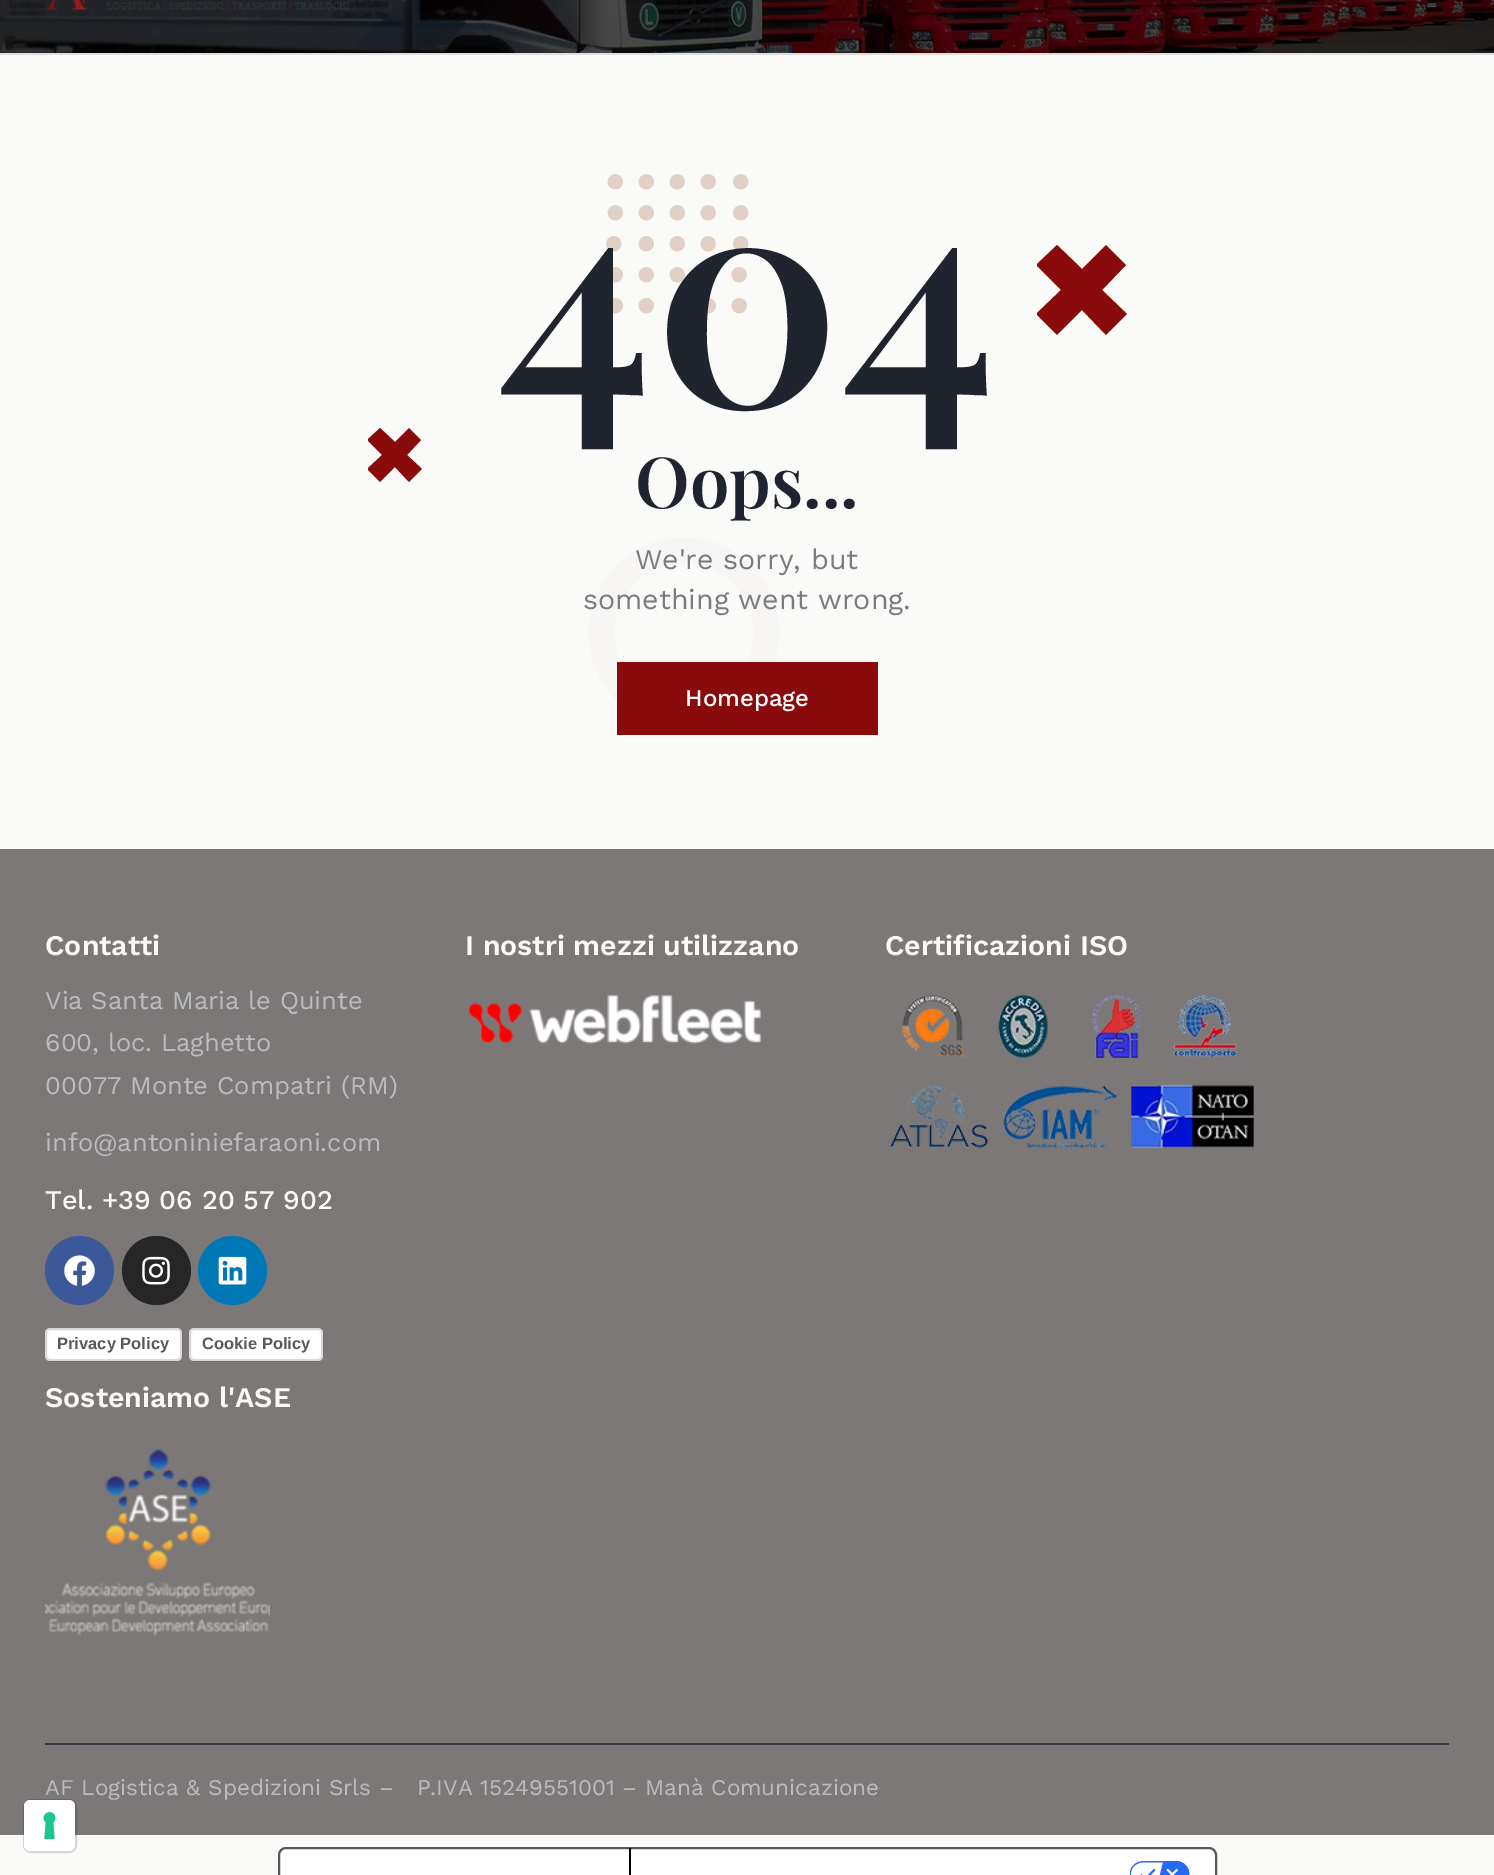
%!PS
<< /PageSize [1494 1875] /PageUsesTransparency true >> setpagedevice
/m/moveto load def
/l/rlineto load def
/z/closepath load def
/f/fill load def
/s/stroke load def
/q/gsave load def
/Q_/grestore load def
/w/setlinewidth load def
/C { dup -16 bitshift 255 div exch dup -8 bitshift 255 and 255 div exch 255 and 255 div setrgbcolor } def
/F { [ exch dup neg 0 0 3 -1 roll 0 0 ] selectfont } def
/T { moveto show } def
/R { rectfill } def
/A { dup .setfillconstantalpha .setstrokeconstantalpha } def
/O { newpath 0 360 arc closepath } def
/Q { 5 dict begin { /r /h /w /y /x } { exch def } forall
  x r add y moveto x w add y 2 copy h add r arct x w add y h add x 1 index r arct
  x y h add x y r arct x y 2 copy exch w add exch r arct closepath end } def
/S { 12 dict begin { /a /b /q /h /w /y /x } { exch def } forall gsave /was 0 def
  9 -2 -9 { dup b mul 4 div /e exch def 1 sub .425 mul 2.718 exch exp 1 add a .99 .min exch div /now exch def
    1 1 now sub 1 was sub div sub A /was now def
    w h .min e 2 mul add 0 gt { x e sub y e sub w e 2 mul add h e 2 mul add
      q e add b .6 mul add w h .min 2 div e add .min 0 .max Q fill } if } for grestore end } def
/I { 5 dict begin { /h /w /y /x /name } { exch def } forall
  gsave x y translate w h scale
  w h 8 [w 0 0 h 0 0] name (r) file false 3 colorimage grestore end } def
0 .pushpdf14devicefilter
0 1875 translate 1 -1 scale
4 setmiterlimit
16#FAFAF8 C
0 0 1494 1875 R
(1.rgb) 0 0 1494 53 I
16#DDDDDD C
0 53 1494 2 R
(2.rgb) 45 0 305 11 I
(3.rgb) 606 174 143 140 I
q
1037 245 90 90 rectclip
16#890B0B C
1036 314 m 25 -24 l -25 -25 l 21 -20 l 25 24 l 24 -24 l 20 20 l -24 25 l 25 24 l -21 21 l -24 -25 l -25 25 l z f
Q_
q
368 428 54 54 rectclip
16#890B0B C
367 469 m 15 -14 l -15 -15 l 13 -12 l 15 14 l 14 -14 l 12 12 l -14 15 l 15 14 l -13 13 l -14 -15 l -15 15 l z f
Q_
16#F8F6F4 C
26 w
684 633 82.5 O s
/PlayfairDisplay-SemiBold 300 F
16#1F242E C
(404) 498 407 T
/PlayfairDisplay-SemiBold 70.5 F
(Oops...) 635 508 T
/WorkSans-Regular 28.5 F
16#797C7F C
(We're sorry, but) 635 569 T
(something went wrong.) 583 609 T
16#890B0B C
617 662 261 73 R
/WorkSans-Medium 24 F
16#FFFFFF C
(Homepage) 685 706 T
16#7C7877 C
0 849 1494 986 R
/WorkSans-SemiBold 28.5 F
16#FAFAF8 C
(Contatti) 45 955 T
/WorkSans-Regular 25.5 F
16#BBBCBE C
(Via Santa Maria le Quinte) 45 1009 T
(600, loc. Laghetto) 45 1051 T
(00077 Monte Compatri \(RM\)) 45 1094 T
(info@antoniniefaraoni.com) 45 1151 T
/WorkSans-Medium 27 F
16#FAFAF8 C
(Tel. +39 06 20 57 902) 45 1209 T
16#3B5998 C
79.5 1270.5 34.5 O f
(4.rgb) 64 1255 31 31 I
16#262626 C
156.5 1270.5 34.5 O f
(5.rgb) 142 1256 28 29 I
16#0077B5 C
232.5 1270.5 34.5 O f
(6.rgb) 218 1256 29 29 I
16#000000 C
47 1331 133 30 3 1 .15 S
16#FFFFFF C
45 1328 137 33 5 Q f
0.15 A
16#000000 C
2 w
46 1329 135 31 4 Q s
/LiberationSans-Bold 16.5 F
1 A
16#595959 C
(Privacy Policy) 57 1349 T
16#000000 C
191 1331 130 30 3 1 .15 S
16#FFFFFF C
189 1328 134 33 5 Q f
0.15 A
16#000000 C
190 1329 132 31 4 Q s
1 A
16#595959 C
(Cookie Policy) 202 1349 T
/WorkSans-SemiBold 28.5 F
16#FAFAF8 C
(I nostri mezzi utilizzano) 465 955 T
(7.rgb) 467 994 295 50 I
(Certificazioni ISO) 885 955 T
(8.rgb) 890 995 364 153 I
(Sosteniamo l'ASE) 45 1407 T
(9.rgb) 45 1448 225 188 I
16#323641 C
45 1743 1404 2 R
/WorkSans-Regular 22.5 F
16#BBBCBE C
(AF Logistica & Spedizioni Srls –   P.IVA 15249551001 – Manà Comunicazione) 45 1795 T
0.15 A
16#000000 C
24 1800 52 52 7 Q s
1 A
16#FFFFFF C
24 1800 51 51 6 Q f
(10.rgb) 43 1812 13 27 I
279 1848 937 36 7 Q q f Q_
16#595959 C
s
16#000000 C
629 1848 2 27 R
(11.rgb) 1130 1861 60 14 I
.poppdf14devicefilter showpage
